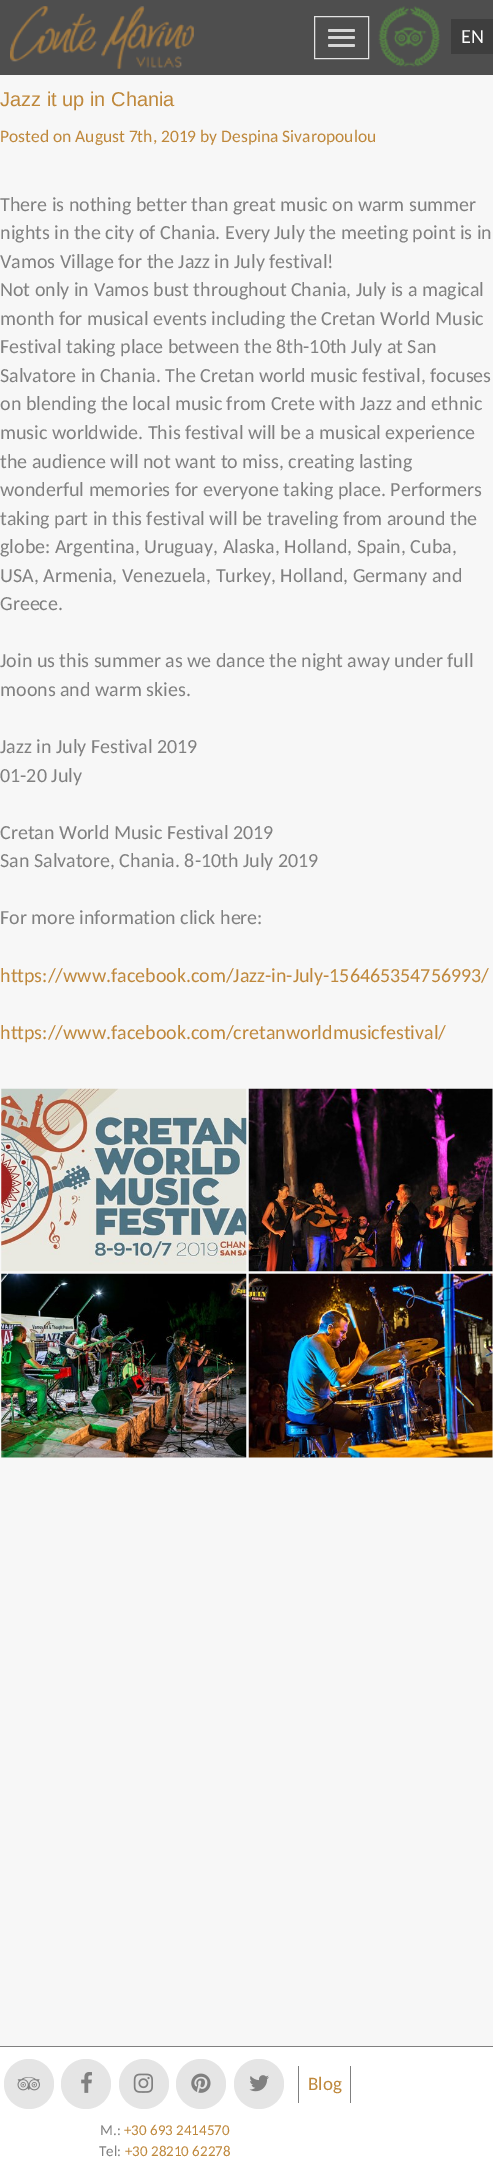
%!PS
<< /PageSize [493 2173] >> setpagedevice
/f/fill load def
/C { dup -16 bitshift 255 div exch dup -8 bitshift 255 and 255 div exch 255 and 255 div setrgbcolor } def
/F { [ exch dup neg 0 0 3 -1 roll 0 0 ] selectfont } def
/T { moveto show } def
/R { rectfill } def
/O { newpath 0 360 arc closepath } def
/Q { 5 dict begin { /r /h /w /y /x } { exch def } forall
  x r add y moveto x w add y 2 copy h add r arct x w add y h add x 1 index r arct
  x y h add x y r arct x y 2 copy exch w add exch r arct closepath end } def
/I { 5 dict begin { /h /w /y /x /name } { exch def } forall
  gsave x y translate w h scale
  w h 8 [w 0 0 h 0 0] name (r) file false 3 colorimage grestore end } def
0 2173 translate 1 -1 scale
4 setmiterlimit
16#F7F7F7 C
0 0 493 2173 R
16#4E4E4E C
0 0 493 75 R
(1.rgb) 10 6 184 63 I
16#E4E4E4 C
314.5 16.5 54 42 rectstroke
16#D7D7D7 C
328 29 27 3 1.5 Q f
328 36 27 3 1.5 Q f
328 44 27 3 1.5 Q f
(2.rgb) 378 6 62 61 I
16#3E3E3E C
451 19 42 35 R
/Carlito-Regular 20 F
16#FDFDFD C
(EN) 461 43 T
/LiberationSans-Regular 20 F
16#BF883B C
(Jazz it up in Chania) 0 106 T
/Carlito-Regular 17.5 F
(Posted on August 7th, 2019 by Despina Sivaropoulou) 0 142 T
/Carlito-Regular 20 F
16#808080 C
(There is nothing better than great music on warm summer) 0 211 T
(nights in the city of Chania. Every July the meeting point is in) 0 239 T
(Vamos Village for the Jazz in July festival!) 0 268 T
(Not only in Vamos bust throughout Chania, July is a magical) 0 296 T
(month for musical events including the Cretan World Music) 0 325 T
(Festival taking place between the 8th-10th July at San) 0 353 T
(Salvatore in Chania. The Cretan world music festival, focuses) 0 382 T
(on blending the local music from Crete with Jazz and ethnic) 0 410 T
(music worldwide. This festival will be a musical experience) 0 439 T
(the audience will not want to miss, creating lasting) 0 468 T
(wonderful memories for everyone taking place. Performers) 0 496 T
(taking part in this festival will be traveling from around the) 0 525 T
(globe: Argentina, Uruguay, Alaska, Holland, Spain, Cuba,) 0 553 T
(USA, Armenia, Venezuela, Turkey, Holland, Germany and) 0 582 T
(Greece.) 0 610 T
(Join us this summer as we dance the night away under full) 0 667 T
(moons and warm skies.) 0 696 T
(Jazz in July Festival 2019) 0 753 T
(01-20 July) 0 782 T
(Cretan World Music Festival 2019) 0 839 T
(San Salvatore, Chania. 8-10th July 2019) 0 867 T
(For more information click here:) 0 924 T
16#BF883B C
(https://www.facebook.com/Jazz-in-July-156465354756993/) 0 982 T
(https://www.facebook.com/cretanworldmusicfestival/) 0 1039 T
(3.rgb) 1 1088 246 184 I
(4.rgb) 248 1088 245 184 I
(5.rgb) 1 1273 246 185 I
(6.rgb) 248 1273 245 185 I
16#FFFFFF C
0 2047 493 126 R
16#808080 C
0 2046 493 1 R
16#E5E5E5 C
29 2084 25 O f
(7.rgb) 17 2077 23 14 I
86 2084 25 O f
(8.rgb) 81 2072 11 21 I
144 2084 25 O f
(9.rgb) 133 2073 20 20 I
201 2084 25 O f
(10.rgb) 191 2073 20 20 I
259 2084 25 O f
(11.rgb) 249 2075 20 17 I
16#808080 C
350 2066 1 37 R
298 2066 1 37 R
/Carlito-Regular 19 F
16#BF883B C
(Blog) 308 2090 T
/Carlito-Regular 15 F
16#808080 C
(M.:) 100 2135 T
16#BF883B C
(+30 693 2414570) 124 2135 T
16#808080 C
(Tel:) 99 2156 T
16#BF883B C
(+30 28210 62278) 125 2156 T
showpage
